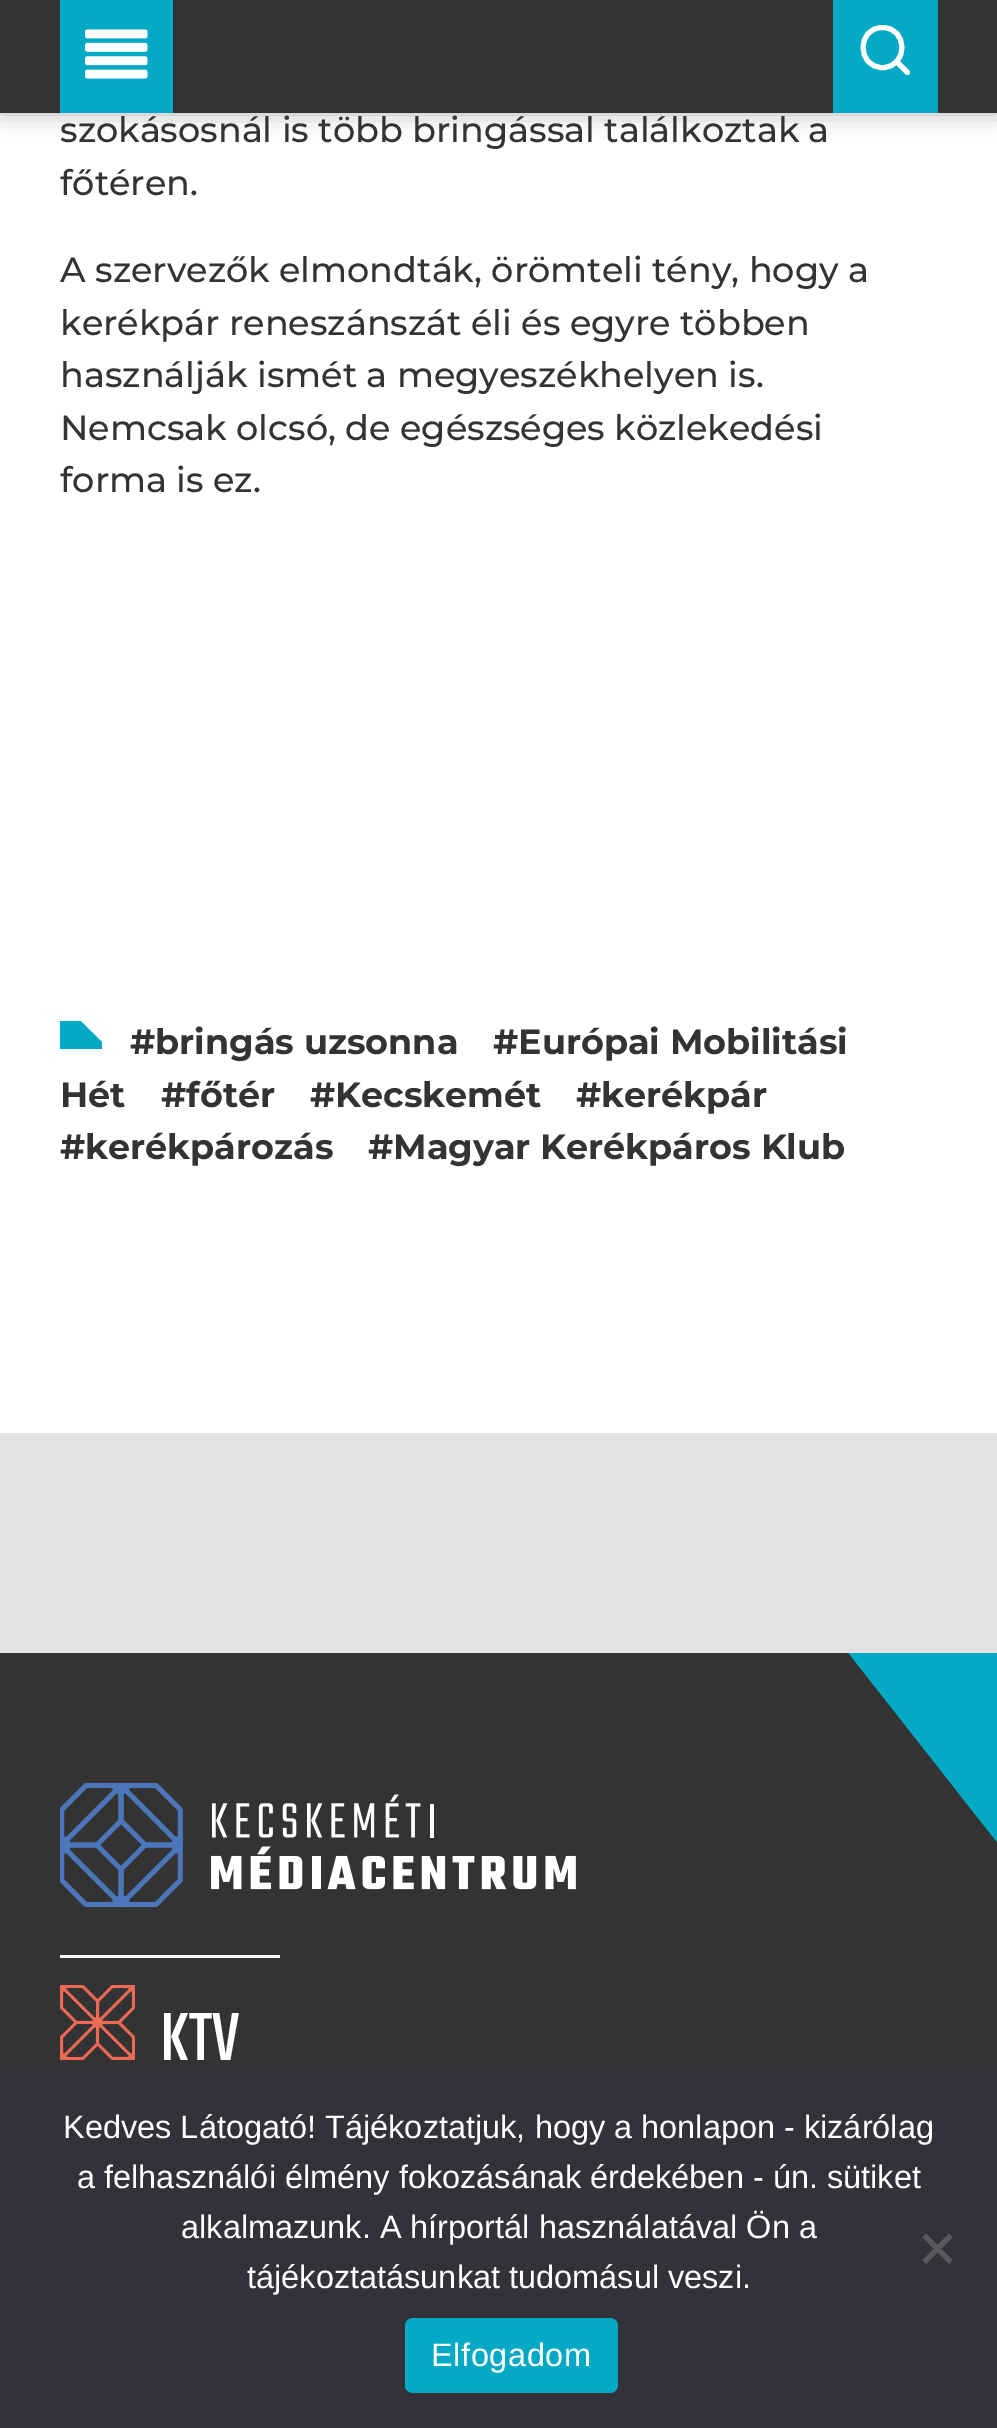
%!PS
<< /PageSize [997 2428] /PageUsesTransparency true >> setpagedevice
/m/moveto load def
/l/rlineto load def
/c/rcurveto load def
/z/closepath load def
/f/fill load def
/s/stroke load def
/w/setlinewidth load def
/C { dup -16 bitshift 255 div exch dup -8 bitshift 255 and 255 div exch 255 and 255 div setrgbcolor } def
/F { [ exch dup neg 0 0 3 -1 roll 0 0 ] selectfont } def
/T { moveto show } def
/R { rectfill } def
/A { dup .setfillconstantalpha .setstrokeconstantalpha } def
/Q { 5 dict begin { /r /h /w /y /x } { exch def } forall
  x r add y moveto x w add y 2 copy h add r arct x w add y h add x 1 index r arct
  x y h add x y r arct x y 2 copy exch w add exch r arct closepath end } def
/S { 12 dict begin { /a /b /q /h /w /y /x } { exch def } forall gsave /was 0 def
  9 -2 -9 { dup b mul 4 div /e exch def 1 sub .425 mul 2.718 exch exp 1 add a .99 .min exch div /now exch def
    1 1 now sub 1 was sub div sub A /was now def
    w h .min e 2 mul add 0 gt { x e sub y e sub w e 2 mul add h e 2 mul add
      q e add b .6 mul add w h .min 2 div e add .min 0 .max Q fill } if } for grestore end } def
/I { 5 dict begin { /h /w /y /x /name } { exch def } forall
  gsave x y translate w h scale
  w h 8 [w 0 0 h 0 0] name (r) file false 3 colorimage grestore end } def
0 .pushpdf14devicefilter
0 2428 translate 1 -1 scale
4 setmiterlimit
16#FFFFFF C
0 0 997 2428 R
16#000000 C
0 0 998 113 0 12.5 .3 S
16#333333 C
0 0 997 113 R
16#03A9C5 C
60 0 113 113 R
(1.rgb) 85 29 63 50 I
833 0 105 113 R
16#FFFFFF C
5 w
1 setlinecap
1 setlinejoin
882.5 67.5 m 26 0 26 -40 0 -40 c -26 0 -26 40 0 40 c z 907.5 72.5 m -11 -11 l s
/Montserrat-Medium 35 F
16#333333 C
(szokásosnál is több bringással találkoztak a) 60 142 T
(főtéren.) 60 195 T
(A szervezők elmondták, örömteli tény, hogy a) 60 282 T
(kerékpár reneszánszát éli és egyre többen) 60 335 T
(használják ismét a megyeszékhelyen is.) 60 387 T
(Nemcsak olcsó, de egészséges közlekedési) 60 440 T
(forma is ez.) 60 492 T
16#03A9C5 C
60 1021 42 28 R
16#FFFFFF C
81 1021 m 21.5 0 l 0 21 l z f
/Montserrat-Bold 35 F
16#333333 C
(#bringás uzsonna) 130 1054 T
(#Európai Mobilitási) 493 1054 T
(Hét) 60 1107 T
(#főtér) 161 1107 T
(#Kecskemét) 310 1107 T
(#kerékpár) 576 1107 T
(#kerékpározás) 60 1159 T
(#Magyar Kerékpáros Klub) 368 1159 T
16#E3E3E3 C
0 1433 997 220 R
16#03A9C5 C
848 1653 149 190 R
16#333333 C
0 1653 m 0 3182 l 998 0 l 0 -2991 l -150 -191 l z f
(2.rgb) 60 1782 516 126 I
16#F5F5F5 C
60 1955 220 3 R
(3.rgb) 60 1985 75 75 I
/Teko-Regular 75 F
16#FFFFFF C
(KTV) 160 2060 T
16#32323A C
0 2065 997 363 R
/LiberationSans-Regular 32.5 F
16#FFFFFF C
(Kedves Látogató! Tájékoztatjuk, hogy a honlapon - kizárólag) 63 2138 T
(a felhasználói élmény fokozásának érdekében - ún. sütiket) 77 2188 T
(alkalmazunk. A hírportál használatával Ön a) 181 2238 T
(tájékoztatásunkat tudomásul veszi.) 247 2288 T
16#59595D C
949 2233.5 m 3.5 4 l -26.5 26.5 l -3.5 -4 l z f
922.5 2237.5 m 3.5 -4 l 26.5 26.5 l -3.5 4 l z f
16#03A9C5 C
405 2318 213 75 8 Q f
16#FFFFFF C
431 2366 m .6 0 (Elfogadom) ashow
.poppdf14devicefilter showpage
